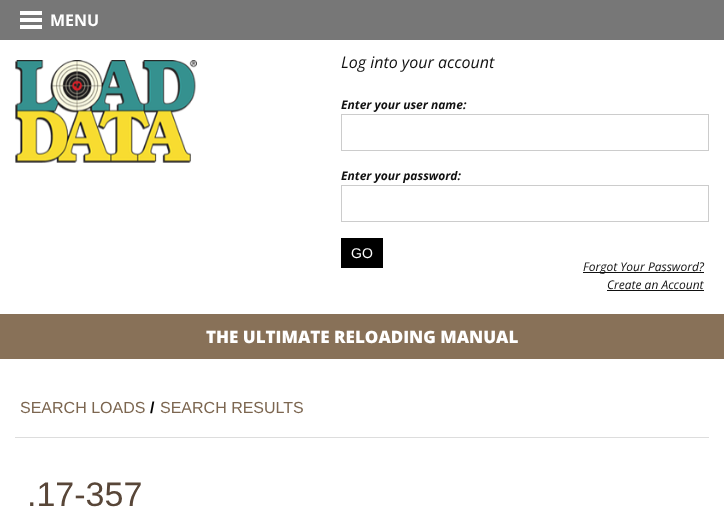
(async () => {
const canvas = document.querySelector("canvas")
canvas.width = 724
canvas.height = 522
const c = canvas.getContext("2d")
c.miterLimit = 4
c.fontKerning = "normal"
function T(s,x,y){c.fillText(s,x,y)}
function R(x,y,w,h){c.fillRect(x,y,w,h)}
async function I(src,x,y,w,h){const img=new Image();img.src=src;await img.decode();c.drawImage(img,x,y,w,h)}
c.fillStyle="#fff"
R(0,0,724,522)
c.fillStyle="#777"
R(0,0,724,40)
await I("1.png",20,11,22,18)
c.font="bold 16px Open Sans"
c.fillStyle="#fff"
T("MENU",50,26)
await I("2.png",15,60,182,103)
c.font="italic 16px Open Sans"
c.fillStyle="#111"
T("Log into your account",341,68)
c.font="italic bold 12px Open Sans"
T("Enter your user name:",341,109)
c.strokeStyle="#ccc"
c.strokeRect(341.5,114.5,367,36)
T("Enter your password:",341,180)
c.strokeRect(341.5,185.5,367,36)
c.fillStyle="#000"
R(341,238,42,30)
c.font="14px Liberation Sans"
c.fillStyle="#fff"
T("GO",351,258)
c.fillStyle="#111"
R(583,272,121,1)
c.font="italic 12px Open Sans"
T("Forgot Your Password?",583,271)
T("Create an Account",607,289)
R(607,290,97,1)
c.fillStyle="#887158"
R(0,314,724,45)
c.font="800 17px Open Sans"
c.fillStyle="#fff"
T("THE ULTIMATE RELOADING MANUAL",206,343)
c.font="16px Liberation Sans"
c.fillStyle="#7c6650"
T("SEARCH LOADS",20,413)
c.font="bold 16px Liberation Sans"
c.fillStyle="#000"
T("/",150,413)
c.font="16px Liberation Sans"
c.fillStyle="#7c6650"
T("SEARCH RESULTS",160,413)
c.fillStyle="#ddd"
R(15,437,694,1)
c.font="34px Liberation Sans"
c.fillStyle="#584638"
T(".17-357",27,506)
})()
